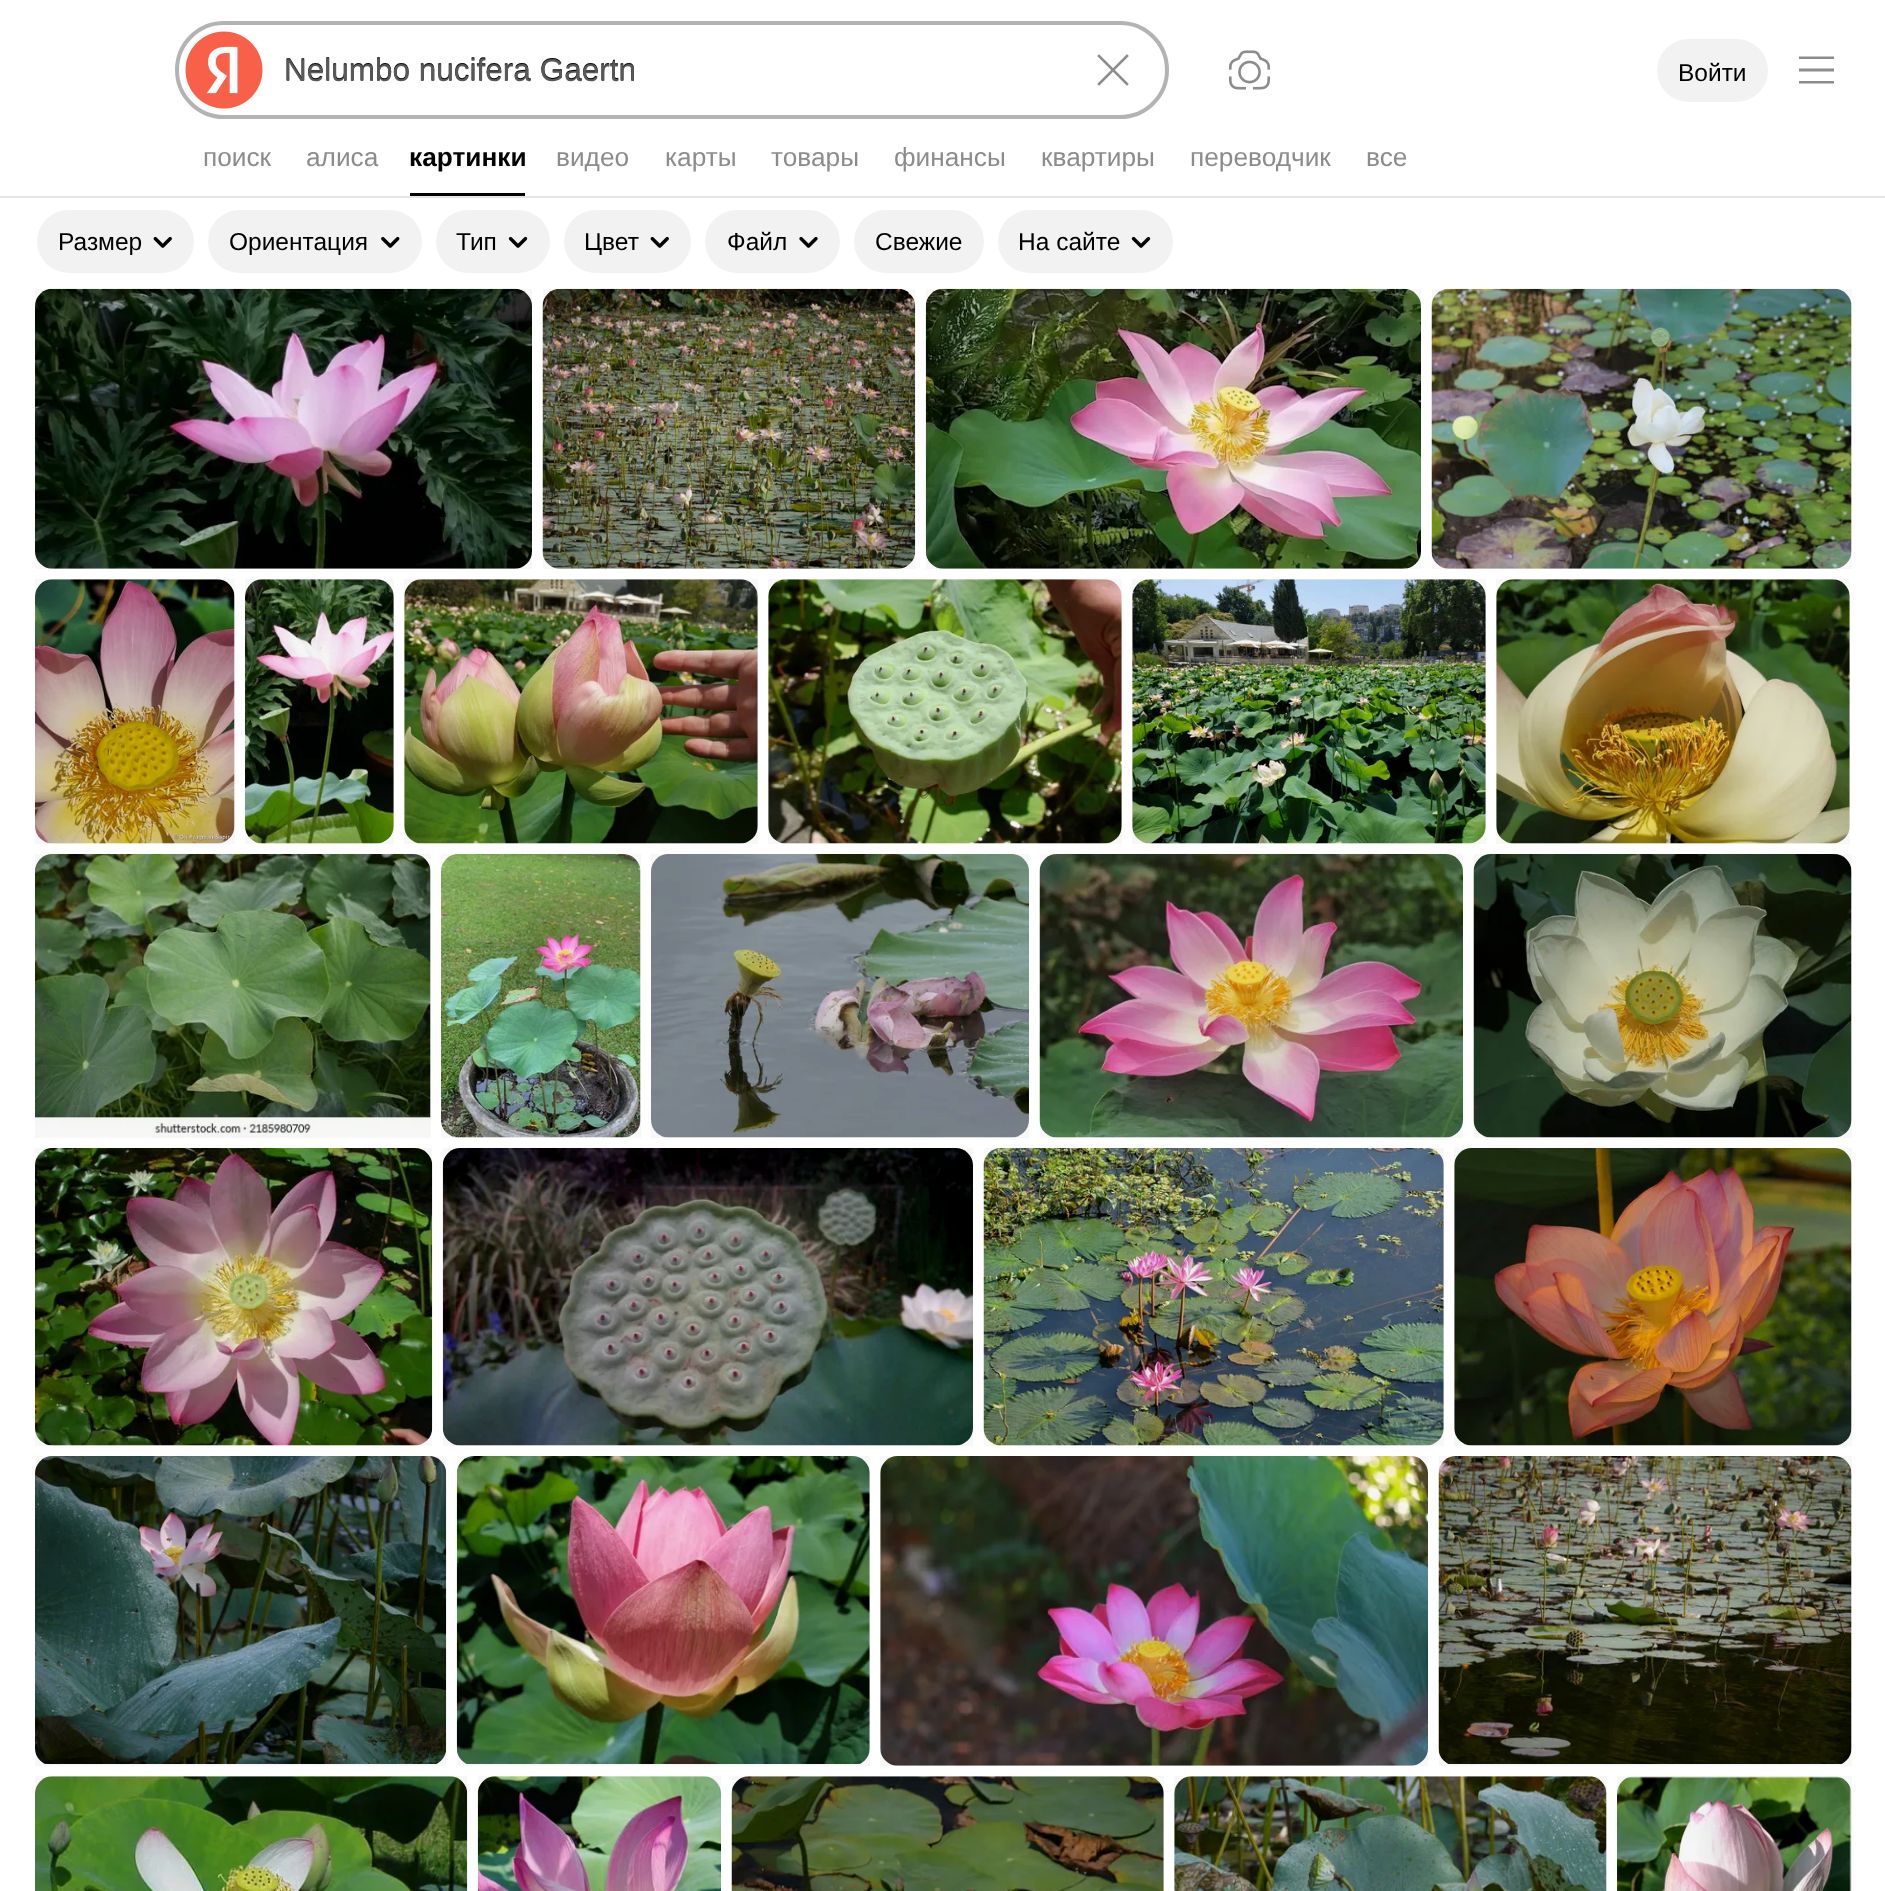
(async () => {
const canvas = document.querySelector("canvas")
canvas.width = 1885
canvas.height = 1891
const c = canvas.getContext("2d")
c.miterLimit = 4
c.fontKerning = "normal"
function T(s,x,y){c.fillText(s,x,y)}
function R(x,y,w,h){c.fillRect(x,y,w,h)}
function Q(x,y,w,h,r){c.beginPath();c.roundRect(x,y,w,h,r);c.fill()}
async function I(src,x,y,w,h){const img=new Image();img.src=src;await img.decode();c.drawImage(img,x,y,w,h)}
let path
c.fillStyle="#fff"
R(0,0,1885,1891)
c.fillStyle="#e6e6e6"
path = new Path2D("M0 196v2h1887v-196h-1v194z")
c.fill(path)
c.beginPath()
c.roundRect(177,23,990,94,47)
c.strokeStyle="#b3b3b3"
c.lineWidth=4
c.stroke()
await I("1.png",185,31,78,78)
c.font="31.5px Liberation Sans"
c.fillStyle="#000"
T("Nelumbo nucifera Gaertn",284,80)
c.fillStyle="#595959"
T("Nelumbo nucifera Gaertn",284,81)
await I("2.png",1097,54,32,32)
await I("3.png",1228,50,42,40)
c.fillStyle="#f2f2f2"
Q(1657,39,111,63,31.5)
c.font="24.5px Liberation Sans"
c.fillStyle="#000"
T("Войти",1678,81)
c.fillStyle="#8c8c8c"
path = new Path2D("M1799 56.5h35v2.5h-35zm0 12h35v3h-35zm0 12.5h35v2.5h-35z")
c.fill(path,"evenodd")
c.font="26.25px Liberation Sans"
T("поиск",203,166)
T("алиса",306,166)
c.font="bold 26.25px Liberation Sans"
c.fillStyle="#000"
T("картинки",409,166)
R(410,193,115,3)
c.font="26.25px Liberation Sans"
c.fillStyle="#8c8c8c"
T("видео",556,166)
T("карты",665,166)
T("товары",771,166)
T("финансы",894,166)
T("квартиры",1041,166)
T("переводчик",1190,166)
T("все",1366,166)
c.fillStyle="#f2f2f2"
Q(37,210,157,63,31.5)
c.font="24.5px Liberation Sans"
c.fillStyle="#000"
T("Размер",58,250)
await I("4.png",153,236,19,12)
c.fillStyle="#f2f2f2"
Q(208,210,214,63,31.5)
c.fillStyle="#000"
T("Ориентация",229,250)
await I("5.png",381,236,19,12)
c.fillStyle="#f2f2f2"
Q(436,210,114,63,31.5)
c.fillStyle="#000"
T("Тип",456,250)
await I("6.png",508,236,20,12)
c.fillStyle="#f2f2f2"
Q(564,210,127,63,31.5)
c.fillStyle="#000"
T("Цвет",584,250)
await I("4.png",650,236,19,12)
c.fillStyle="#f2f2f2"
Q(705,210,135,63,31.5)
c.fillStyle="#000"
T("Файл",727,250)
await I("7.png",799,236,19,12)
c.fillStyle="#f2f2f2"
Q(854,210,130,63,31.5)
c.fillStyle="#000"
T("Свежие",875,250)
c.fillStyle="#f2f2f2"
Q(998,210,175,63,31.5)
c.fillStyle="#000"
T("На сайте",1018,250)
await I("6.png",1131,236,20,12)
await I("8.png",35,288,497,281)
c.fillStyle="#00000008"
R(35,289,497,280)
await I("9.png",542,288,374,281)
R(543,289,372,280)
await I("10.png",925,288,496,281)
R(926,289,495,280)
await I("11.png",1431,288,421,281)
R(1432,289,420,280)
await I("12.png",35,579,200,265)
R(35,579,200,265)
await I("13.png",245,579,149,265)
R(245,579,149,265)
await I("14.png",404,579,354,265)
R(404,579,354,265)
await I("15.png",768,579,354,265)
R(768,579,354,265)
await I("16.png",1132,579,354,265)
R(1132,579,354,265)
await I("17.png",1496,579,354,265)
R(1496,579,354,265)
await I("18.png",35,854,396,283)
R(35,854,396,284)
await I("19.png",441,854,200,284)
R(441,854,200,284)
await I("20.png",651,854,378,284)
R(651,854,378,284)
await I("21.png",1039,854,424,284)
R(1040,854,423,284)
await I("22.png",1473,854,379,284)
R(1474,854,378,284)
await I("23.png",35,1148,398,298)
R(35,1148,397,298)
await I("24.png",442,1148,531,298)
R(443,1148,530,298)
await I("25.png",983,1148,461,298)
R(984,1148,460,298)
await I("26.png",1454,1148,398,298)
R(1454,1148,398,298)
await I("27.png",35,1456,412,308)
R(35,1456,411,310)
await I("28.png",456,1456,414,308)
R(457,1456,413,310)
await I("29.png",880,1456,548,310)
R(880,1456,548,310)
await I("30.png",1438,1456,414,308)
R(1439,1456,413,310)
await I("31.png",35,1776,433,115)
R(35,1776,432,115)
await I("32.png",477,1776,244,115)
R(478,1776,243,115)
await I("33.png",731,1776,433,115)
R(732,1776,432,115)
await I("34.png",1174,1776,433,115)
R(1174,1776,433,115)
await I("35.png",1617,1776,235,115)
R(1617,1776,235,115)
})()
